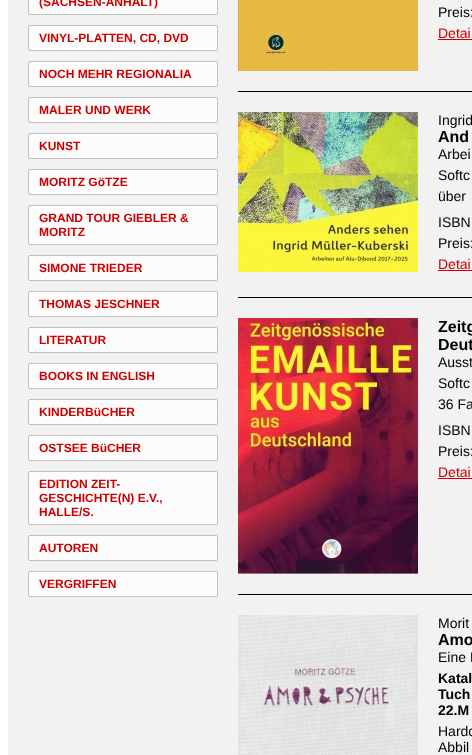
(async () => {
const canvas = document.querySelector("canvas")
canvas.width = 472
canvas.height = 755
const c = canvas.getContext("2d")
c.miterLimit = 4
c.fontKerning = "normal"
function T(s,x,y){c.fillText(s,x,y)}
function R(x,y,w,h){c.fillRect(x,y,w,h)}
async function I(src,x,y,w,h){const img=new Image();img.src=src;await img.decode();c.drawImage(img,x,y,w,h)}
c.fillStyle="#fff"
R(0,0,472,755)
c.fillStyle="#f2f2f2"
R(8,0,464,755)
c.fillStyle="#fcfcfc"
c.beginPath()
c.roundRect(28.5,-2.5,189,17,1.5)
c.fill()
c.strokeStyle="#c0c0c0"
c.stroke()
c.font="bold 12px Liberation Sans"
c.fillStyle="#c00"
T("(SACHSEN-ANHALT)",39,6)
c.fillStyle="#fcfcfc"
c.beginPath()
c.roundRect(28.5,25.5,189,25,1.5)
c.fill()
c.stroke()
c.fillStyle="#c00"
T("VINYL-PLATTEN, CD, DVD",39,42)
c.fillStyle="#fcfcfc"
c.beginPath()
c.roundRect(28.5,61.5,189,25,1.5)
c.fill()
c.stroke()
c.fillStyle="#c00"
T("NOCH MEHR REGIONALIA",39,78)
c.fillStyle="#fcfcfc"
c.beginPath()
c.roundRect(28.5,97.5,189,25,1.5)
c.fill()
c.stroke()
c.fillStyle="#c00"
T("MALER UND WERK",39,114)
c.fillStyle="#fcfcfc"
c.beginPath()
c.roundRect(28.5,133.5,189,25,1.5)
c.fill()
c.stroke()
c.fillStyle="#c00"
T("KUNST",39,150)
c.fillStyle="#fcfcfc"
c.beginPath()
c.roundRect(28.5,169.5,189,25,1.5)
c.fill()
c.stroke()
c.fillStyle="#c00"
T("MORITZ GöTZE",39,186)
c.fillStyle="#fcfcfc"
c.beginPath()
c.roundRect(28.5,205.5,189,39,1.5)
c.fill()
c.stroke()
c.fillStyle="#c00"
T("GRAND TOUR GIEBLER &",39,222)
T("MORITZ",39,236)
c.fillStyle="#fcfcfc"
c.beginPath()
c.roundRect(28.5,255.5,189,25,1.5)
c.fill()
c.stroke()
c.fillStyle="#c00"
T("SIMONE TRIEDER",39,272)
c.fillStyle="#fcfcfc"
c.beginPath()
c.roundRect(28.5,291.5,189,25,1.5)
c.fill()
c.stroke()
c.fillStyle="#c00"
T("THOMAS JESCHNER",39,308)
c.fillStyle="#fcfcfc"
c.beginPath()
c.roundRect(28.5,327.5,189,25,1.5)
c.fill()
c.stroke()
c.fillStyle="#c00"
T("LITERATUR",39,344)
c.fillStyle="#fcfcfc"
c.beginPath()
c.roundRect(28.5,363.5,189,25,1.5)
c.fill()
c.stroke()
c.fillStyle="#c00"
T("BOOKS IN ENGLISH",39,380)
c.fillStyle="#fcfcfc"
c.beginPath()
c.roundRect(28.5,399.5,189,25,1.5)
c.fill()
c.stroke()
c.fillStyle="#c00"
T("KINDERBüCHER",39,416)
c.fillStyle="#fcfcfc"
c.beginPath()
c.roundRect(28.5,435.5,189,25,1.5)
c.fill()
c.stroke()
c.fillStyle="#c00"
T("OSTSEE BüCHER",39,452)
c.fillStyle="#fcfcfc"
c.beginPath()
c.roundRect(28.5,471.5,189,53,1.5)
c.fill()
c.stroke()
c.fillStyle="#c00"
T("EDITION ZEIT-",39,488)
T("GESCHICHTE(N) E.V.,",39,502)
T("HALLE/S.",39,516)
c.fillStyle="#fcfcfc"
c.beginPath()
c.roundRect(28.5,535.5,189,25,1.5)
c.fill()
c.stroke()
c.fillStyle="#c00"
T("AUTOREN",39,552)
c.fillStyle="#fcfcfc"
c.beginPath()
c.roundRect(28.5,571.5,189,25,1.5)
c.fill()
c.stroke()
c.fillStyle="#c00"
T("VERGRIFFEN",39,588)
c.fillStyle="#000"
R(238,91,234,1)
await I("1.png",238,0,180,71)
c.font="14px Liberation Sans"
T("Preis:",438,17)
c.fillStyle="#c00"
T("Detai",438,38)
R(438,39,34,1)
c.fillStyle="#000"
R(238,297,234,1)
await I("2.png",238,112,180,160)
T("Ingrid",438,125)
c.font="bold 16px Liberation Sans"
T("And",438,142)
c.font="14px Liberation Sans"
T("Arbei",438,159)
T("Softc",438,180)
T("über",438,201)
T("ISBN",438,227)
T("Preis:",438,248)
c.fillStyle="#c00"
T("Detai",438,269)
R(438,270,34,1)
c.fillStyle="#000"
R(238,594,234,1)
await I("3.png",238,318,180,256)
c.font="bold 16px Liberation Sans"
T("Zeitg",438,332)
T("Deut",438,350)
c.font="14px Liberation Sans"
T("Ausst",438,367)
T("Softc",438,388)
T("36 Fa",438,409)
T("ISBN",438,435)
T("Preis:",438,456)
c.fillStyle="#c00"
T("Detai",438,477)
R(438,478,34,1)
await I("4.png",238,615,180,140)
c.fillStyle="#000"
T("Morit",438,628)
c.font="bold 16px Liberation Sans"
T("Amo",438,645)
c.font="14px Liberation Sans"
T("Eine L",438,662)
c.font="bold 14px Liberation Sans"
T("Katal",438,683)
T("Tuch",438,699)
T("22.M",438,715)
c.font="14px Liberation Sans"
T("Hardc",438,736)
T("Abbil",438,752)
})()
